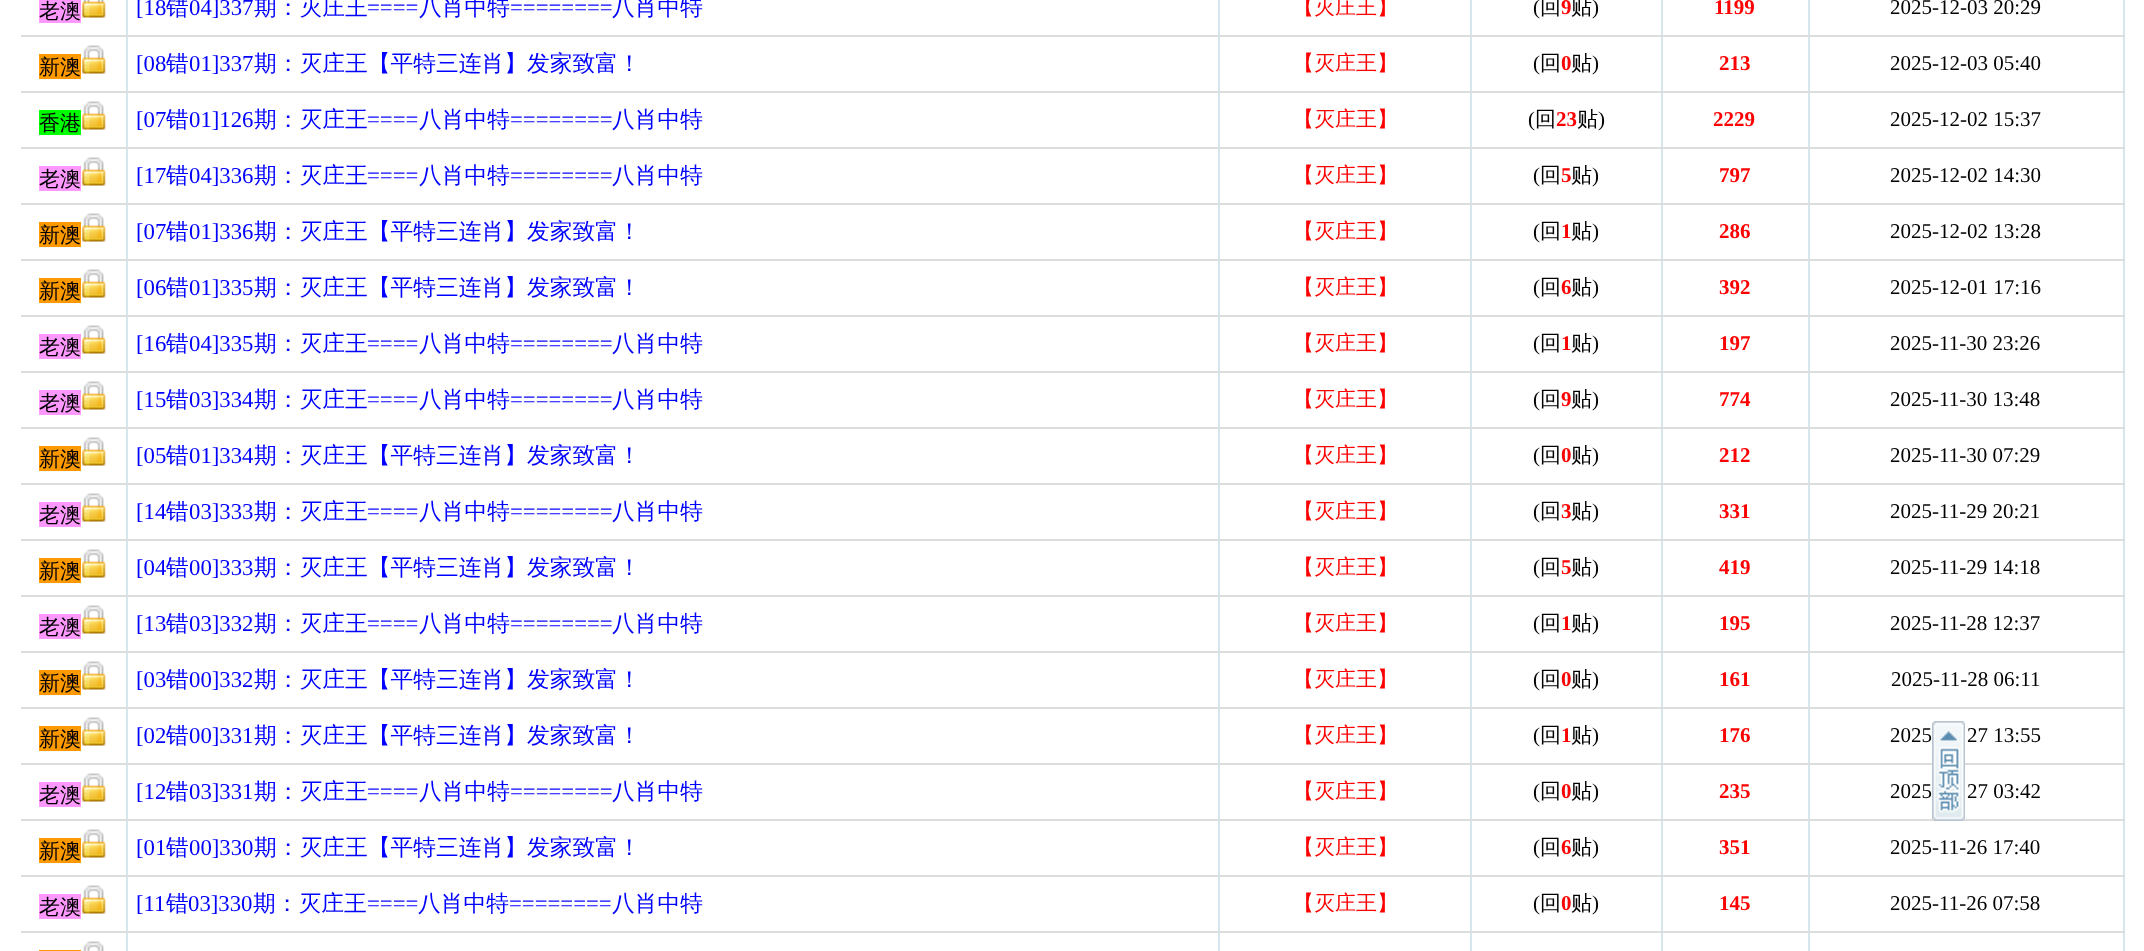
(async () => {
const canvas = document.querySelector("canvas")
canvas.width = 2144
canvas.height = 951
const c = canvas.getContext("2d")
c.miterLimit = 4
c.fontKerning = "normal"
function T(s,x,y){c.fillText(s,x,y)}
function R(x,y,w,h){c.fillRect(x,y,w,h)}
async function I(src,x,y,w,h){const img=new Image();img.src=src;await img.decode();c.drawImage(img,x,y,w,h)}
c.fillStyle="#fff"
R(0,0,2144,951)
c.fillStyle="#d5e6ed"
R(2123,0,2,951)
c.fillStyle="#ddd"
R(1808,35,317,2)
c.fillStyle="#d5e6ed"
R(1808,0,2,37)
c.fillStyle="#ddd"
R(1661,35,149,2)
c.fillStyle="#d5e6ed"
R(1661,0,2,37)
c.fillStyle="#ddd"
R(1470,35,193,2)
c.fillStyle="#d5e6ed"
R(1470,0,2,37)
c.fillStyle="#ddd"
R(1218,35,254,2)
c.fillStyle="#d5e6ed"
R(1218,0,2,37)
c.fillStyle="#ddd"
R(126,35,1094,2)
c.fillStyle="#d5e6ed"
R(126,0,2,37)
c.fillStyle="#ddd"
R(21,35,107,2)
c.fillStyle="#f9f"
R(39,0,42,23)
c.font="500 21px WenQuanYi Zen Hei"
c.fillStyle="#000"
T("老澳",39,18)
await I("1.png",81,0,25,18)
c.font="22.75px Liberation Serif"
c.fillStyle="#00f"
T("[18",136,15)
c.font="500 22.75px WenQuanYi Zen Hei"
T("错",166,15)
c.font="22.75px Liberation Serif"
T("04]337",189,15)
c.font="500 22.75px WenQuanYi Zen Hei"
T("期：灭庄王",254,15)
c.font="22.75px Liberation Serif"
T("====",367,15)
c.font="500 22.75px WenQuanYi Zen Hei"
T("八肖中特",419,15)
c.font="22.75px Liberation Serif"
T("========",510,15)
c.font="500 22.75px WenQuanYi Zen Hei"
T("八肖中特",612,15)
c.font="500 21px WenQuanYi Zen Hei"
c.fillStyle="#f00"
T("【灭庄王】",1293,14)
c.font="21px Liberation Serif"
c.fillStyle="#000"
T("(",1533,14)
c.font="500 21px WenQuanYi Zen Hei"
T("回",1540,14)
c.font="bold 21px Liberation Serif"
c.fillStyle="#f00"
T("9",1561,14)
c.font="500 21px WenQuanYi Zen Hei"
c.fillStyle="#000"
T("贴",1571,14)
c.font="21px Liberation Serif"
T(")",1592,14)
c.font="bold 21px Liberation Serif"
c.fillStyle="#f00"
T("1199",1714,14)
c.font="21px Liberation Serif"
c.fillStyle="#000"
T("2025-12-03 20:29",1890,14)
c.fillStyle="#ddd"
R(1808,91,317,2)
c.fillStyle="#d5e6ed"
R(1808,37,2,56)
c.fillStyle="#ddd"
R(1661,91,149,2)
c.fillStyle="#d5e6ed"
R(1661,37,2,56)
c.fillStyle="#ddd"
R(1470,91,193,2)
c.fillStyle="#d5e6ed"
R(1470,37,2,56)
c.fillStyle="#ddd"
R(1218,91,254,2)
c.fillStyle="#d5e6ed"
R(1218,37,2,56)
c.fillStyle="#ddd"
R(126,91,1094,2)
c.fillStyle="#d5e6ed"
R(126,37,2,56)
c.fillStyle="#ddd"
R(21,91,107,2)
c.fillStyle="#f90"
R(39,54,42,25)
c.font="500 21px WenQuanYi Zen Hei"
c.fillStyle="#000"
T("新澳",39,74)
await I("2.png",81,45,25,29)
c.font="22.75px Liberation Serif"
c.fillStyle="#00f"
T("[08",136,71)
c.font="500 22.75px WenQuanYi Zen Hei"
T("错",166,71)
c.font="22.75px Liberation Serif"
T("01]337",189,71)
c.font="500 22.75px WenQuanYi Zen Hei"
T("期：灭庄王【平特三连肖】发家致富！",254,71)
c.font="500 21px WenQuanYi Zen Hei"
c.fillStyle="#f00"
T("【灭庄王】",1293,70)
c.font="21px Liberation Serif"
c.fillStyle="#000"
T("(",1533,70)
c.font="500 21px WenQuanYi Zen Hei"
T("回",1540,70)
c.font="bold 21px Liberation Serif"
c.fillStyle="#f00"
T("0",1561,70)
c.font="500 21px WenQuanYi Zen Hei"
c.fillStyle="#000"
T("贴",1571,70)
c.font="21px Liberation Serif"
T(")",1592,70)
c.font="bold 21px Liberation Serif"
c.fillStyle="#f00"
T("213",1719,70)
c.font="21px Liberation Serif"
c.fillStyle="#000"
T("2025-12-03 05:40",1890,70)
c.fillStyle="#ddd"
R(1808,147,317,2)
c.fillStyle="#d5e6ed"
R(1808,93,2,56)
c.fillStyle="#ddd"
R(1661,147,149,2)
c.fillStyle="#d5e6ed"
R(1661,93,2,56)
c.fillStyle="#ddd"
R(1470,147,193,2)
c.fillStyle="#d5e6ed"
R(1470,93,2,56)
c.fillStyle="#ddd"
R(1218,147,254,2)
c.fillStyle="#d5e6ed"
R(1218,93,2,56)
c.fillStyle="#ddd"
R(126,147,1094,2)
c.fillStyle="#d5e6ed"
R(126,93,2,56)
c.fillStyle="#ddd"
R(21,147,107,2)
c.fillStyle="#0f0"
R(39,110,42,25)
c.font="500 21px WenQuanYi Zen Hei"
c.fillStyle="#000"
T("香港",39,130)
await I("2.png",81,101,25,29)
c.font="22.75px Liberation Serif"
c.fillStyle="#00f"
T("[07",136,127)
c.font="500 22.75px WenQuanYi Zen Hei"
T("错",166,127)
c.font="22.75px Liberation Serif"
T("01]126",189,127)
c.font="500 22.75px WenQuanYi Zen Hei"
T("期：灭庄王",254,127)
c.font="22.75px Liberation Serif"
T("====",367,127)
c.font="500 22.75px WenQuanYi Zen Hei"
T("八肖中特",419,127)
c.font="22.75px Liberation Serif"
T("========",510,127)
c.font="500 22.75px WenQuanYi Zen Hei"
T("八肖中特",612,127)
c.font="500 21px WenQuanYi Zen Hei"
c.fillStyle="#f00"
T("【灭庄王】",1293,126)
c.font="21px Liberation Serif"
c.fillStyle="#000"
T("(",1528,126)
c.font="500 21px WenQuanYi Zen Hei"
T("回",1535,126)
c.font="bold 21px Liberation Serif"
c.fillStyle="#f00"
T("23",1556,126)
c.font="500 21px WenQuanYi Zen Hei"
c.fillStyle="#000"
T("贴",1577,126)
c.font="21px Liberation Serif"
T(")",1598,126)
c.font="bold 21px Liberation Serif"
c.fillStyle="#f00"
T("2229",1713,126)
c.font="21px Liberation Serif"
c.fillStyle="#000"
T("2025-12-02 15:37",1890,126)
c.fillStyle="#ddd"
R(1808,203,317,2)
c.fillStyle="#d5e6ed"
R(1808,149,2,56)
c.fillStyle="#ddd"
R(1661,203,149,2)
c.fillStyle="#d5e6ed"
R(1661,149,2,56)
c.fillStyle="#ddd"
R(1470,203,193,2)
c.fillStyle="#d5e6ed"
R(1470,149,2,56)
c.fillStyle="#ddd"
R(1218,203,254,2)
c.fillStyle="#d5e6ed"
R(1218,149,2,56)
c.fillStyle="#ddd"
R(126,203,1094,2)
c.fillStyle="#d5e6ed"
R(126,149,2,56)
c.fillStyle="#ddd"
R(21,203,107,2)
c.fillStyle="#f9f"
R(39,166,42,25)
c.font="500 21px WenQuanYi Zen Hei"
c.fillStyle="#000"
T("老澳",39,186)
await I("2.png",81,157,25,29)
c.font="22.75px Liberation Serif"
c.fillStyle="#00f"
T("[17",136,183)
c.font="500 22.75px WenQuanYi Zen Hei"
T("错",166,183)
c.font="22.75px Liberation Serif"
T("04]336",189,183)
c.font="500 22.75px WenQuanYi Zen Hei"
T("期：灭庄王",254,183)
c.font="22.75px Liberation Serif"
T("====",367,183)
c.font="500 22.75px WenQuanYi Zen Hei"
T("八肖中特",419,183)
c.font="22.75px Liberation Serif"
T("========",510,183)
c.font="500 22.75px WenQuanYi Zen Hei"
T("八肖中特",612,183)
c.font="500 21px WenQuanYi Zen Hei"
c.fillStyle="#f00"
T("【灭庄王】",1293,182)
c.font="21px Liberation Serif"
c.fillStyle="#000"
T("(",1533,182)
c.font="500 21px WenQuanYi Zen Hei"
T("回",1540,182)
c.font="bold 21px Liberation Serif"
c.fillStyle="#f00"
T("5",1561,182)
c.font="500 21px WenQuanYi Zen Hei"
c.fillStyle="#000"
T("贴",1571,182)
c.font="21px Liberation Serif"
T(")",1592,182)
c.font="bold 21px Liberation Serif"
c.fillStyle="#f00"
T("797",1719,182)
c.font="21px Liberation Serif"
c.fillStyle="#000"
T("2025-12-02 14:30",1890,182)
c.fillStyle="#ddd"
R(1808,259,317,2)
c.fillStyle="#d5e6ed"
R(1808,205,2,56)
c.fillStyle="#ddd"
R(1661,259,149,2)
c.fillStyle="#d5e6ed"
R(1661,205,2,56)
c.fillStyle="#ddd"
R(1470,259,193,2)
c.fillStyle="#d5e6ed"
R(1470,205,2,56)
c.fillStyle="#ddd"
R(1218,259,254,2)
c.fillStyle="#d5e6ed"
R(1218,205,2,56)
c.fillStyle="#ddd"
R(126,259,1094,2)
c.fillStyle="#d5e6ed"
R(126,205,2,56)
c.fillStyle="#ddd"
R(21,259,107,2)
c.fillStyle="#f90"
R(39,222,42,25)
c.font="500 21px WenQuanYi Zen Hei"
c.fillStyle="#000"
T("新澳",39,242)
await I("2.png",81,213,25,29)
c.font="22.75px Liberation Serif"
c.fillStyle="#00f"
T("[07",136,239)
c.font="500 22.75px WenQuanYi Zen Hei"
T("错",166,239)
c.font="22.75px Liberation Serif"
T("01]336",189,239)
c.font="500 22.75px WenQuanYi Zen Hei"
T("期：灭庄王【平特三连肖】发家致富！",254,239)
c.font="500 21px WenQuanYi Zen Hei"
c.fillStyle="#f00"
T("【灭庄王】",1293,238)
c.font="21px Liberation Serif"
c.fillStyle="#000"
T("(",1533,238)
c.font="500 21px WenQuanYi Zen Hei"
T("回",1540,238)
c.font="bold 21px Liberation Serif"
c.fillStyle="#f00"
T("1",1561,238)
c.font="500 21px WenQuanYi Zen Hei"
c.fillStyle="#000"
T("贴",1571,238)
c.font="21px Liberation Serif"
T(")",1592,238)
c.font="bold 21px Liberation Serif"
c.fillStyle="#f00"
T("286",1719,238)
c.font="21px Liberation Serif"
c.fillStyle="#000"
T("2025-12-02 13:28",1890,238)
c.fillStyle="#ddd"
R(1808,315,317,2)
c.fillStyle="#d5e6ed"
R(1808,261,2,56)
c.fillStyle="#ddd"
R(1661,315,149,2)
c.fillStyle="#d5e6ed"
R(1661,261,2,56)
c.fillStyle="#ddd"
R(1470,315,193,2)
c.fillStyle="#d5e6ed"
R(1470,261,2,56)
c.fillStyle="#ddd"
R(1218,315,254,2)
c.fillStyle="#d5e6ed"
R(1218,261,2,56)
c.fillStyle="#ddd"
R(126,315,1094,2)
c.fillStyle="#d5e6ed"
R(126,261,2,56)
c.fillStyle="#ddd"
R(21,315,107,2)
c.fillStyle="#f90"
R(39,278,42,25)
c.font="500 21px WenQuanYi Zen Hei"
c.fillStyle="#000"
T("新澳",39,298)
await I("2.png",81,269,25,29)
c.font="22.75px Liberation Serif"
c.fillStyle="#00f"
T("[06",136,295)
c.font="500 22.75px WenQuanYi Zen Hei"
T("错",166,295)
c.font="22.75px Liberation Serif"
T("01]335",189,295)
c.font="500 22.75px WenQuanYi Zen Hei"
T("期：灭庄王【平特三连肖】发家致富！",254,295)
c.font="500 21px WenQuanYi Zen Hei"
c.fillStyle="#f00"
T("【灭庄王】",1293,294)
c.font="21px Liberation Serif"
c.fillStyle="#000"
T("(",1533,294)
c.font="500 21px WenQuanYi Zen Hei"
T("回",1540,294)
c.font="bold 21px Liberation Serif"
c.fillStyle="#f00"
T("6",1561,294)
c.font="500 21px WenQuanYi Zen Hei"
c.fillStyle="#000"
T("贴",1571,294)
c.font="21px Liberation Serif"
T(")",1592,294)
c.font="bold 21px Liberation Serif"
c.fillStyle="#f00"
T("392",1719,294)
c.font="21px Liberation Serif"
c.fillStyle="#000"
T("2025-12-01 17:16",1890,294)
c.fillStyle="#ddd"
R(1808,371,317,2)
c.fillStyle="#d5e6ed"
R(1808,317,2,56)
c.fillStyle="#ddd"
R(1661,371,149,2)
c.fillStyle="#d5e6ed"
R(1661,317,2,56)
c.fillStyle="#ddd"
R(1470,371,193,2)
c.fillStyle="#d5e6ed"
R(1470,317,2,56)
c.fillStyle="#ddd"
R(1218,371,254,2)
c.fillStyle="#d5e6ed"
R(1218,317,2,56)
c.fillStyle="#ddd"
R(126,371,1094,2)
c.fillStyle="#d5e6ed"
R(126,317,2,56)
c.fillStyle="#ddd"
R(21,371,107,2)
c.fillStyle="#f9f"
R(39,334,42,25)
c.font="500 21px WenQuanYi Zen Hei"
c.fillStyle="#000"
T("老澳",39,354)
await I("2.png",81,325,25,29)
c.font="22.75px Liberation Serif"
c.fillStyle="#00f"
T("[16",136,351)
c.font="500 22.75px WenQuanYi Zen Hei"
T("错",166,351)
c.font="22.75px Liberation Serif"
T("04]335",189,351)
c.font="500 22.75px WenQuanYi Zen Hei"
T("期：灭庄王",254,351)
c.font="22.75px Liberation Serif"
T("====",367,351)
c.font="500 22.75px WenQuanYi Zen Hei"
T("八肖中特",419,351)
c.font="22.75px Liberation Serif"
T("========",510,351)
c.font="500 22.75px WenQuanYi Zen Hei"
T("八肖中特",612,351)
c.font="500 21px WenQuanYi Zen Hei"
c.fillStyle="#f00"
T("【灭庄王】",1293,350)
c.font="21px Liberation Serif"
c.fillStyle="#000"
T("(",1533,350)
c.font="500 21px WenQuanYi Zen Hei"
T("回",1540,350)
c.font="bold 21px Liberation Serif"
c.fillStyle="#f00"
T("1",1561,350)
c.font="500 21px WenQuanYi Zen Hei"
c.fillStyle="#000"
T("贴",1571,350)
c.font="21px Liberation Serif"
T(")",1592,350)
c.font="bold 21px Liberation Serif"
c.fillStyle="#f00"
T("197",1719,350)
c.font="21px Liberation Serif"
c.fillStyle="#000"
T("2025-11-30 23:26",1890,350)
c.fillStyle="#ddd"
R(1808,427,317,2)
c.fillStyle="#d5e6ed"
R(1808,373,2,56)
c.fillStyle="#ddd"
R(1661,427,149,2)
c.fillStyle="#d5e6ed"
R(1661,373,2,56)
c.fillStyle="#ddd"
R(1470,427,193,2)
c.fillStyle="#d5e6ed"
R(1470,373,2,56)
c.fillStyle="#ddd"
R(1218,427,254,2)
c.fillStyle="#d5e6ed"
R(1218,373,2,56)
c.fillStyle="#ddd"
R(126,427,1094,2)
c.fillStyle="#d5e6ed"
R(126,373,2,56)
c.fillStyle="#ddd"
R(21,427,107,2)
c.fillStyle="#f9f"
R(39,390,42,25)
c.font="500 21px WenQuanYi Zen Hei"
c.fillStyle="#000"
T("老澳",39,410)
await I("2.png",81,381,25,29)
c.font="22.75px Liberation Serif"
c.fillStyle="#00f"
T("[15",136,407)
c.font="500 22.75px WenQuanYi Zen Hei"
T("错",166,407)
c.font="22.75px Liberation Serif"
T("03]334",189,407)
c.font="500 22.75px WenQuanYi Zen Hei"
T("期：灭庄王",254,407)
c.font="22.75px Liberation Serif"
T("====",367,407)
c.font="500 22.75px WenQuanYi Zen Hei"
T("八肖中特",419,407)
c.font="22.75px Liberation Serif"
T("========",510,407)
c.font="500 22.75px WenQuanYi Zen Hei"
T("八肖中特",612,407)
c.font="500 21px WenQuanYi Zen Hei"
c.fillStyle="#f00"
T("【灭庄王】",1293,406)
c.font="21px Liberation Serif"
c.fillStyle="#000"
T("(",1533,406)
c.font="500 21px WenQuanYi Zen Hei"
T("回",1540,406)
c.font="bold 21px Liberation Serif"
c.fillStyle="#f00"
T("9",1561,406)
c.font="500 21px WenQuanYi Zen Hei"
c.fillStyle="#000"
T("贴",1571,406)
c.font="21px Liberation Serif"
T(")",1592,406)
c.font="bold 21px Liberation Serif"
c.fillStyle="#f00"
T("774",1719,406)
c.font="21px Liberation Serif"
c.fillStyle="#000"
T("2025-11-30 13:48",1890,406)
c.fillStyle="#ddd"
R(1808,483,317,2)
c.fillStyle="#d5e6ed"
R(1808,429,2,56)
c.fillStyle="#ddd"
R(1661,483,149,2)
c.fillStyle="#d5e6ed"
R(1661,429,2,56)
c.fillStyle="#ddd"
R(1470,483,193,2)
c.fillStyle="#d5e6ed"
R(1470,429,2,56)
c.fillStyle="#ddd"
R(1218,483,254,2)
c.fillStyle="#d5e6ed"
R(1218,429,2,56)
c.fillStyle="#ddd"
R(126,483,1094,2)
c.fillStyle="#d5e6ed"
R(126,429,2,56)
c.fillStyle="#ddd"
R(21,483,107,2)
c.fillStyle="#f90"
R(39,446,42,25)
c.font="500 21px WenQuanYi Zen Hei"
c.fillStyle="#000"
T("新澳",39,466)
await I("2.png",81,437,25,29)
c.font="22.75px Liberation Serif"
c.fillStyle="#00f"
T("[05",136,463)
c.font="500 22.75px WenQuanYi Zen Hei"
T("错",166,463)
c.font="22.75px Liberation Serif"
T("01]334",189,463)
c.font="500 22.75px WenQuanYi Zen Hei"
T("期：灭庄王【平特三连肖】发家致富！",254,463)
c.font="500 21px WenQuanYi Zen Hei"
c.fillStyle="#f00"
T("【灭庄王】",1293,462)
c.font="21px Liberation Serif"
c.fillStyle="#000"
T("(",1533,462)
c.font="500 21px WenQuanYi Zen Hei"
T("回",1540,462)
c.font="bold 21px Liberation Serif"
c.fillStyle="#f00"
T("0",1561,462)
c.font="500 21px WenQuanYi Zen Hei"
c.fillStyle="#000"
T("贴",1571,462)
c.font="21px Liberation Serif"
T(")",1592,462)
c.font="bold 21px Liberation Serif"
c.fillStyle="#f00"
T("212",1719,462)
c.font="21px Liberation Serif"
c.fillStyle="#000"
T("2025-11-30 07:29",1890,462)
c.fillStyle="#ddd"
R(1808,539,317,2)
c.fillStyle="#d5e6ed"
R(1808,485,2,56)
c.fillStyle="#ddd"
R(1661,539,149,2)
c.fillStyle="#d5e6ed"
R(1661,485,2,56)
c.fillStyle="#ddd"
R(1470,539,193,2)
c.fillStyle="#d5e6ed"
R(1470,485,2,56)
c.fillStyle="#ddd"
R(1218,539,254,2)
c.fillStyle="#d5e6ed"
R(1218,485,2,56)
c.fillStyle="#ddd"
R(126,539,1094,2)
c.fillStyle="#d5e6ed"
R(126,485,2,56)
c.fillStyle="#ddd"
R(21,539,107,2)
c.fillStyle="#f9f"
R(39,502,42,25)
c.font="500 21px WenQuanYi Zen Hei"
c.fillStyle="#000"
T("老澳",39,522)
await I("2.png",81,493,25,29)
c.font="22.75px Liberation Serif"
c.fillStyle="#00f"
T("[14",136,519)
c.font="500 22.75px WenQuanYi Zen Hei"
T("错",166,519)
c.font="22.75px Liberation Serif"
T("03]333",189,519)
c.font="500 22.75px WenQuanYi Zen Hei"
T("期：灭庄王",254,519)
c.font="22.75px Liberation Serif"
T("====",367,519)
c.font="500 22.75px WenQuanYi Zen Hei"
T("八肖中特",419,519)
c.font="22.75px Liberation Serif"
T("========",510,519)
c.font="500 22.75px WenQuanYi Zen Hei"
T("八肖中特",612,519)
c.font="500 21px WenQuanYi Zen Hei"
c.fillStyle="#f00"
T("【灭庄王】",1293,518)
c.font="21px Liberation Serif"
c.fillStyle="#000"
T("(",1533,518)
c.font="500 21px WenQuanYi Zen Hei"
T("回",1540,518)
c.font="bold 21px Liberation Serif"
c.fillStyle="#f00"
T("3",1561,518)
c.font="500 21px WenQuanYi Zen Hei"
c.fillStyle="#000"
T("贴",1571,518)
c.font="21px Liberation Serif"
T(")",1592,518)
c.font="bold 21px Liberation Serif"
c.fillStyle="#f00"
T("331",1719,518)
c.font="21px Liberation Serif"
c.fillStyle="#000"
T("2025-11-29 20:21",1890,518)
c.fillStyle="#ddd"
R(1808,595,317,2)
c.fillStyle="#d5e6ed"
R(1808,541,2,56)
c.fillStyle="#ddd"
R(1661,595,149,2)
c.fillStyle="#d5e6ed"
R(1661,541,2,56)
c.fillStyle="#ddd"
R(1470,595,193,2)
c.fillStyle="#d5e6ed"
R(1470,541,2,56)
c.fillStyle="#ddd"
R(1218,595,254,2)
c.fillStyle="#d5e6ed"
R(1218,541,2,56)
c.fillStyle="#ddd"
R(126,595,1094,2)
c.fillStyle="#d5e6ed"
R(126,541,2,56)
c.fillStyle="#ddd"
R(21,595,107,2)
c.fillStyle="#f90"
R(39,558,42,25)
c.font="500 21px WenQuanYi Zen Hei"
c.fillStyle="#000"
T("新澳",39,578)
await I("2.png",81,549,25,29)
c.font="22.75px Liberation Serif"
c.fillStyle="#00f"
T("[04",136,575)
c.font="500 22.75px WenQuanYi Zen Hei"
T("错",166,575)
c.font="22.75px Liberation Serif"
T("00]333",189,575)
c.font="500 22.75px WenQuanYi Zen Hei"
T("期：灭庄王【平特三连肖】发家致富！",254,575)
c.font="500 21px WenQuanYi Zen Hei"
c.fillStyle="#f00"
T("【灭庄王】",1293,574)
c.font="21px Liberation Serif"
c.fillStyle="#000"
T("(",1533,574)
c.font="500 21px WenQuanYi Zen Hei"
T("回",1540,574)
c.font="bold 21px Liberation Serif"
c.fillStyle="#f00"
T("5",1561,574)
c.font="500 21px WenQuanYi Zen Hei"
c.fillStyle="#000"
T("贴",1571,574)
c.font="21px Liberation Serif"
T(")",1592,574)
c.font="bold 21px Liberation Serif"
c.fillStyle="#f00"
T("419",1719,574)
c.font="21px Liberation Serif"
c.fillStyle="#000"
T("2025-11-29 14:18",1890,574)
c.fillStyle="#ddd"
R(1808,651,317,2)
c.fillStyle="#d5e6ed"
R(1808,597,2,56)
c.fillStyle="#ddd"
R(1661,651,149,2)
c.fillStyle="#d5e6ed"
R(1661,597,2,56)
c.fillStyle="#ddd"
R(1470,651,193,2)
c.fillStyle="#d5e6ed"
R(1470,597,2,56)
c.fillStyle="#ddd"
R(1218,651,254,2)
c.fillStyle="#d5e6ed"
R(1218,597,2,56)
c.fillStyle="#ddd"
R(126,651,1094,2)
c.fillStyle="#d5e6ed"
R(126,597,2,56)
c.fillStyle="#ddd"
R(21,651,107,2)
c.fillStyle="#f9f"
R(39,614,42,25)
c.font="500 21px WenQuanYi Zen Hei"
c.fillStyle="#000"
T("老澳",39,634)
await I("2.png",81,605,25,29)
c.font="22.75px Liberation Serif"
c.fillStyle="#00f"
T("[13",136,631)
c.font="500 22.75px WenQuanYi Zen Hei"
T("错",166,631)
c.font="22.75px Liberation Serif"
T("03]332",189,631)
c.font="500 22.75px WenQuanYi Zen Hei"
T("期：灭庄王",254,631)
c.font="22.75px Liberation Serif"
T("====",367,631)
c.font="500 22.75px WenQuanYi Zen Hei"
T("八肖中特",419,631)
c.font="22.75px Liberation Serif"
T("========",510,631)
c.font="500 22.75px WenQuanYi Zen Hei"
T("八肖中特",612,631)
c.font="500 21px WenQuanYi Zen Hei"
c.fillStyle="#f00"
T("【灭庄王】",1293,630)
c.font="21px Liberation Serif"
c.fillStyle="#000"
T("(",1533,630)
c.font="500 21px WenQuanYi Zen Hei"
T("回",1540,630)
c.font="bold 21px Liberation Serif"
c.fillStyle="#f00"
T("1",1561,630)
c.font="500 21px WenQuanYi Zen Hei"
c.fillStyle="#000"
T("贴",1571,630)
c.font="21px Liberation Serif"
T(")",1592,630)
c.font="bold 21px Liberation Serif"
c.fillStyle="#f00"
T("195",1719,630)
c.font="21px Liberation Serif"
c.fillStyle="#000"
T("2025-11-28 12:37",1890,630)
c.fillStyle="#ddd"
R(1808,707,317,2)
c.fillStyle="#d5e6ed"
R(1808,653,2,56)
c.fillStyle="#ddd"
R(1661,707,149,2)
c.fillStyle="#d5e6ed"
R(1661,653,2,56)
c.fillStyle="#ddd"
R(1470,707,193,2)
c.fillStyle="#d5e6ed"
R(1470,653,2,56)
c.fillStyle="#ddd"
R(1218,707,254,2)
c.fillStyle="#d5e6ed"
R(1218,653,2,56)
c.fillStyle="#ddd"
R(126,707,1094,2)
c.fillStyle="#d5e6ed"
R(126,653,2,56)
c.fillStyle="#ddd"
R(21,707,107,2)
c.fillStyle="#f90"
R(39,670,42,25)
c.font="500 21px WenQuanYi Zen Hei"
c.fillStyle="#000"
T("新澳",39,690)
await I("2.png",81,661,25,29)
c.font="22.75px Liberation Serif"
c.fillStyle="#00f"
T("[03",136,687)
c.font="500 22.75px WenQuanYi Zen Hei"
T("错",166,687)
c.font="22.75px Liberation Serif"
T("00]332",189,687)
c.font="500 22.75px WenQuanYi Zen Hei"
T("期：灭庄王【平特三连肖】发家致富！",254,687)
c.font="500 21px WenQuanYi Zen Hei"
c.fillStyle="#f00"
T("【灭庄王】",1293,686)
c.font="21px Liberation Serif"
c.fillStyle="#000"
T("(",1533,686)
c.font="500 21px WenQuanYi Zen Hei"
T("回",1540,686)
c.font="bold 21px Liberation Serif"
c.fillStyle="#f00"
T("0",1561,686)
c.font="500 21px WenQuanYi Zen Hei"
c.fillStyle="#000"
T("贴",1571,686)
c.font="21px Liberation Serif"
T(")",1592,686)
c.font="bold 21px Liberation Serif"
c.fillStyle="#f00"
T("161",1719,686)
c.font="21px Liberation Serif"
c.fillStyle="#000"
T("2025-11-28 06:11",1891,686)
c.fillStyle="#ddd"
R(1808,763,317,2)
c.fillStyle="#d5e6ed"
R(1808,709,2,56)
c.fillStyle="#ddd"
R(1661,763,149,2)
c.fillStyle="#d5e6ed"
R(1661,709,2,56)
c.fillStyle="#ddd"
R(1470,763,193,2)
c.fillStyle="#d5e6ed"
R(1470,709,2,56)
c.fillStyle="#ddd"
R(1218,763,254,2)
c.fillStyle="#d5e6ed"
R(1218,709,2,56)
c.fillStyle="#ddd"
R(126,763,1094,2)
c.fillStyle="#d5e6ed"
R(126,709,2,56)
c.fillStyle="#ddd"
R(21,763,107,2)
c.fillStyle="#f90"
R(39,726,42,25)
c.font="500 21px WenQuanYi Zen Hei"
c.fillStyle="#000"
T("新澳",39,746)
await I("2.png",81,717,25,29)
c.font="22.75px Liberation Serif"
c.fillStyle="#00f"
T("[02",136,743)
c.font="500 22.75px WenQuanYi Zen Hei"
T("错",166,743)
c.font="22.75px Liberation Serif"
T("00]331",189,743)
c.font="500 22.75px WenQuanYi Zen Hei"
T("期：灭庄王【平特三连肖】发家致富！",254,743)
c.font="500 21px WenQuanYi Zen Hei"
c.fillStyle="#f00"
T("【灭庄王】",1293,742)
c.font="21px Liberation Serif"
c.fillStyle="#000"
T("(",1533,742)
c.font="500 21px WenQuanYi Zen Hei"
T("回",1540,742)
c.font="bold 21px Liberation Serif"
c.fillStyle="#f00"
T("1",1561,742)
c.font="500 21px WenQuanYi Zen Hei"
c.fillStyle="#000"
T("贴",1571,742)
c.font="21px Liberation Serif"
T(")",1592,742)
c.font="bold 21px Liberation Serif"
c.fillStyle="#f00"
T("176",1719,742)
c.font="21px Liberation Serif"
c.fillStyle="#000"
T("2025",1890,742)
T("27 13:55",1967,742)
c.fillStyle="#ddd"
R(1808,819,317,2)
c.fillStyle="#d5e6ed"
R(1808,765,2,56)
c.fillStyle="#ddd"
R(1661,819,149,2)
c.fillStyle="#d5e6ed"
R(1661,765,2,56)
c.fillStyle="#ddd"
R(1470,819,193,2)
c.fillStyle="#d5e6ed"
R(1470,765,2,56)
c.fillStyle="#ddd"
R(1218,819,254,2)
c.fillStyle="#d5e6ed"
R(1218,765,2,56)
c.fillStyle="#ddd"
R(126,819,1094,2)
c.fillStyle="#d5e6ed"
R(126,765,2,56)
c.fillStyle="#ddd"
R(21,819,107,2)
c.fillStyle="#f9f"
R(39,782,42,25)
c.font="500 21px WenQuanYi Zen Hei"
c.fillStyle="#000"
T("老澳",39,802)
await I("2.png",81,773,25,29)
c.font="22.75px Liberation Serif"
c.fillStyle="#00f"
T("[12",136,799)
c.font="500 22.75px WenQuanYi Zen Hei"
T("错",166,799)
c.font="22.75px Liberation Serif"
T("03]331",189,799)
c.font="500 22.75px WenQuanYi Zen Hei"
T("期：灭庄王",254,799)
c.font="22.75px Liberation Serif"
T("====",367,799)
c.font="500 22.75px WenQuanYi Zen Hei"
T("八肖中特",419,799)
c.font="22.75px Liberation Serif"
T("========",510,799)
c.font="500 22.75px WenQuanYi Zen Hei"
T("八肖中特",612,799)
c.font="500 21px WenQuanYi Zen Hei"
c.fillStyle="#f00"
T("【灭庄王】",1293,798)
c.font="21px Liberation Serif"
c.fillStyle="#000"
T("(",1533,798)
c.font="500 21px WenQuanYi Zen Hei"
T("回",1540,798)
c.font="bold 21px Liberation Serif"
c.fillStyle="#f00"
T("0",1561,798)
c.font="500 21px WenQuanYi Zen Hei"
c.fillStyle="#000"
T("贴",1571,798)
c.font="21px Liberation Serif"
T(")",1592,798)
c.font="bold 21px Liberation Serif"
c.fillStyle="#f00"
T("235",1719,798)
c.font="21px Liberation Serif"
c.fillStyle="#000"
T("2025",1890,798)
T("27 03:42",1967,798)
c.fillStyle="#ddd"
R(1808,875,317,2)
c.fillStyle="#d5e6ed"
R(1808,821,2,56)
c.fillStyle="#ddd"
R(1661,875,149,2)
c.fillStyle="#d5e6ed"
R(1661,821,2,56)
c.fillStyle="#ddd"
R(1470,875,193,2)
c.fillStyle="#d5e6ed"
R(1470,821,2,56)
c.fillStyle="#ddd"
R(1218,875,254,2)
c.fillStyle="#d5e6ed"
R(1218,821,2,56)
c.fillStyle="#ddd"
R(126,875,1094,2)
c.fillStyle="#d5e6ed"
R(126,821,2,56)
c.fillStyle="#ddd"
R(21,875,107,2)
c.fillStyle="#f90"
R(39,838,42,25)
c.font="500 21px WenQuanYi Zen Hei"
c.fillStyle="#000"
T("新澳",39,858)
await I("2.png",81,829,25,29)
c.font="22.75px Liberation Serif"
c.fillStyle="#00f"
T("[01",136,855)
c.font="500 22.75px WenQuanYi Zen Hei"
T("错",166,855)
c.font="22.75px Liberation Serif"
T("00]330",189,855)
c.font="500 22.75px WenQuanYi Zen Hei"
T("期：灭庄王【平特三连肖】发家致富！",254,855)
c.font="500 21px WenQuanYi Zen Hei"
c.fillStyle="#f00"
T("【灭庄王】",1293,854)
c.font="21px Liberation Serif"
c.fillStyle="#000"
T("(",1533,854)
c.font="500 21px WenQuanYi Zen Hei"
T("回",1540,854)
c.font="bold 21px Liberation Serif"
c.fillStyle="#f00"
T("6",1561,854)
c.font="500 21px WenQuanYi Zen Hei"
c.fillStyle="#000"
T("贴",1571,854)
c.font="21px Liberation Serif"
T(")",1592,854)
c.font="bold 21px Liberation Serif"
c.fillStyle="#f00"
T("351",1719,854)
c.font="21px Liberation Serif"
c.fillStyle="#000"
T("2025-11-26 17:40",1890,854)
c.fillStyle="#ddd"
R(1808,931,317,2)
c.fillStyle="#d5e6ed"
R(1808,877,2,74)
c.fillStyle="#ddd"
R(1661,931,149,2)
c.fillStyle="#d5e6ed"
R(1661,877,2,74)
c.fillStyle="#ddd"
R(1470,931,193,2)
c.fillStyle="#d5e6ed"
R(1470,877,2,74)
c.fillStyle="#ddd"
R(1218,931,254,2)
c.fillStyle="#d5e6ed"
R(1218,877,2,74)
c.fillStyle="#ddd"
R(126,931,1094,2)
c.fillStyle="#d5e6ed"
R(126,877,2,74)
c.fillStyle="#ddd"
R(21,931,107,2)
c.fillStyle="#f9f"
R(39,894,42,25)
c.font="500 21px WenQuanYi Zen Hei"
c.fillStyle="#000"
T("老澳",39,914)
await I("2.png",81,885,25,29)
c.font="22.75px Liberation Serif"
c.fillStyle="#00f"
T("[11",136,911)
c.font="500 22.75px WenQuanYi Zen Hei"
T("错",166,911)
c.font="22.75px Liberation Serif"
T("03]330",188,911)
c.font="500 22.75px WenQuanYi Zen Hei"
T("期：灭庄王",253,911)
c.font="22.75px Liberation Serif"
T("====",367,911)
c.font="500 22.75px WenQuanYi Zen Hei"
T("八肖中特",418,911)
c.font="22.75px Liberation Serif"
T("========",509,911)
c.font="500 22.75px WenQuanYi Zen Hei"
T("八肖中特",612,911)
c.font="500 21px WenQuanYi Zen Hei"
c.fillStyle="#f00"
T("【灭庄王】",1293,910)
c.font="21px Liberation Serif"
c.fillStyle="#000"
T("(",1533,910)
c.font="500 21px WenQuanYi Zen Hei"
T("回",1540,910)
c.font="bold 21px Liberation Serif"
c.fillStyle="#f00"
T("0",1561,910)
c.font="500 21px WenQuanYi Zen Hei"
c.fillStyle="#000"
T("贴",1571,910)
c.font="21px Liberation Serif"
T(")",1592,910)
c.font="bold 21px Liberation Serif"
c.fillStyle="#f00"
T("145",1719,910)
c.font="21px Liberation Serif"
c.fillStyle="#000"
T("2025-11-26 07:58",1890,910)
c.fillStyle="#f90"
R(39,950,42,1)
await I("3.png",83,941,21,10)
await I("4.png",1932,721,33,100)
})()
